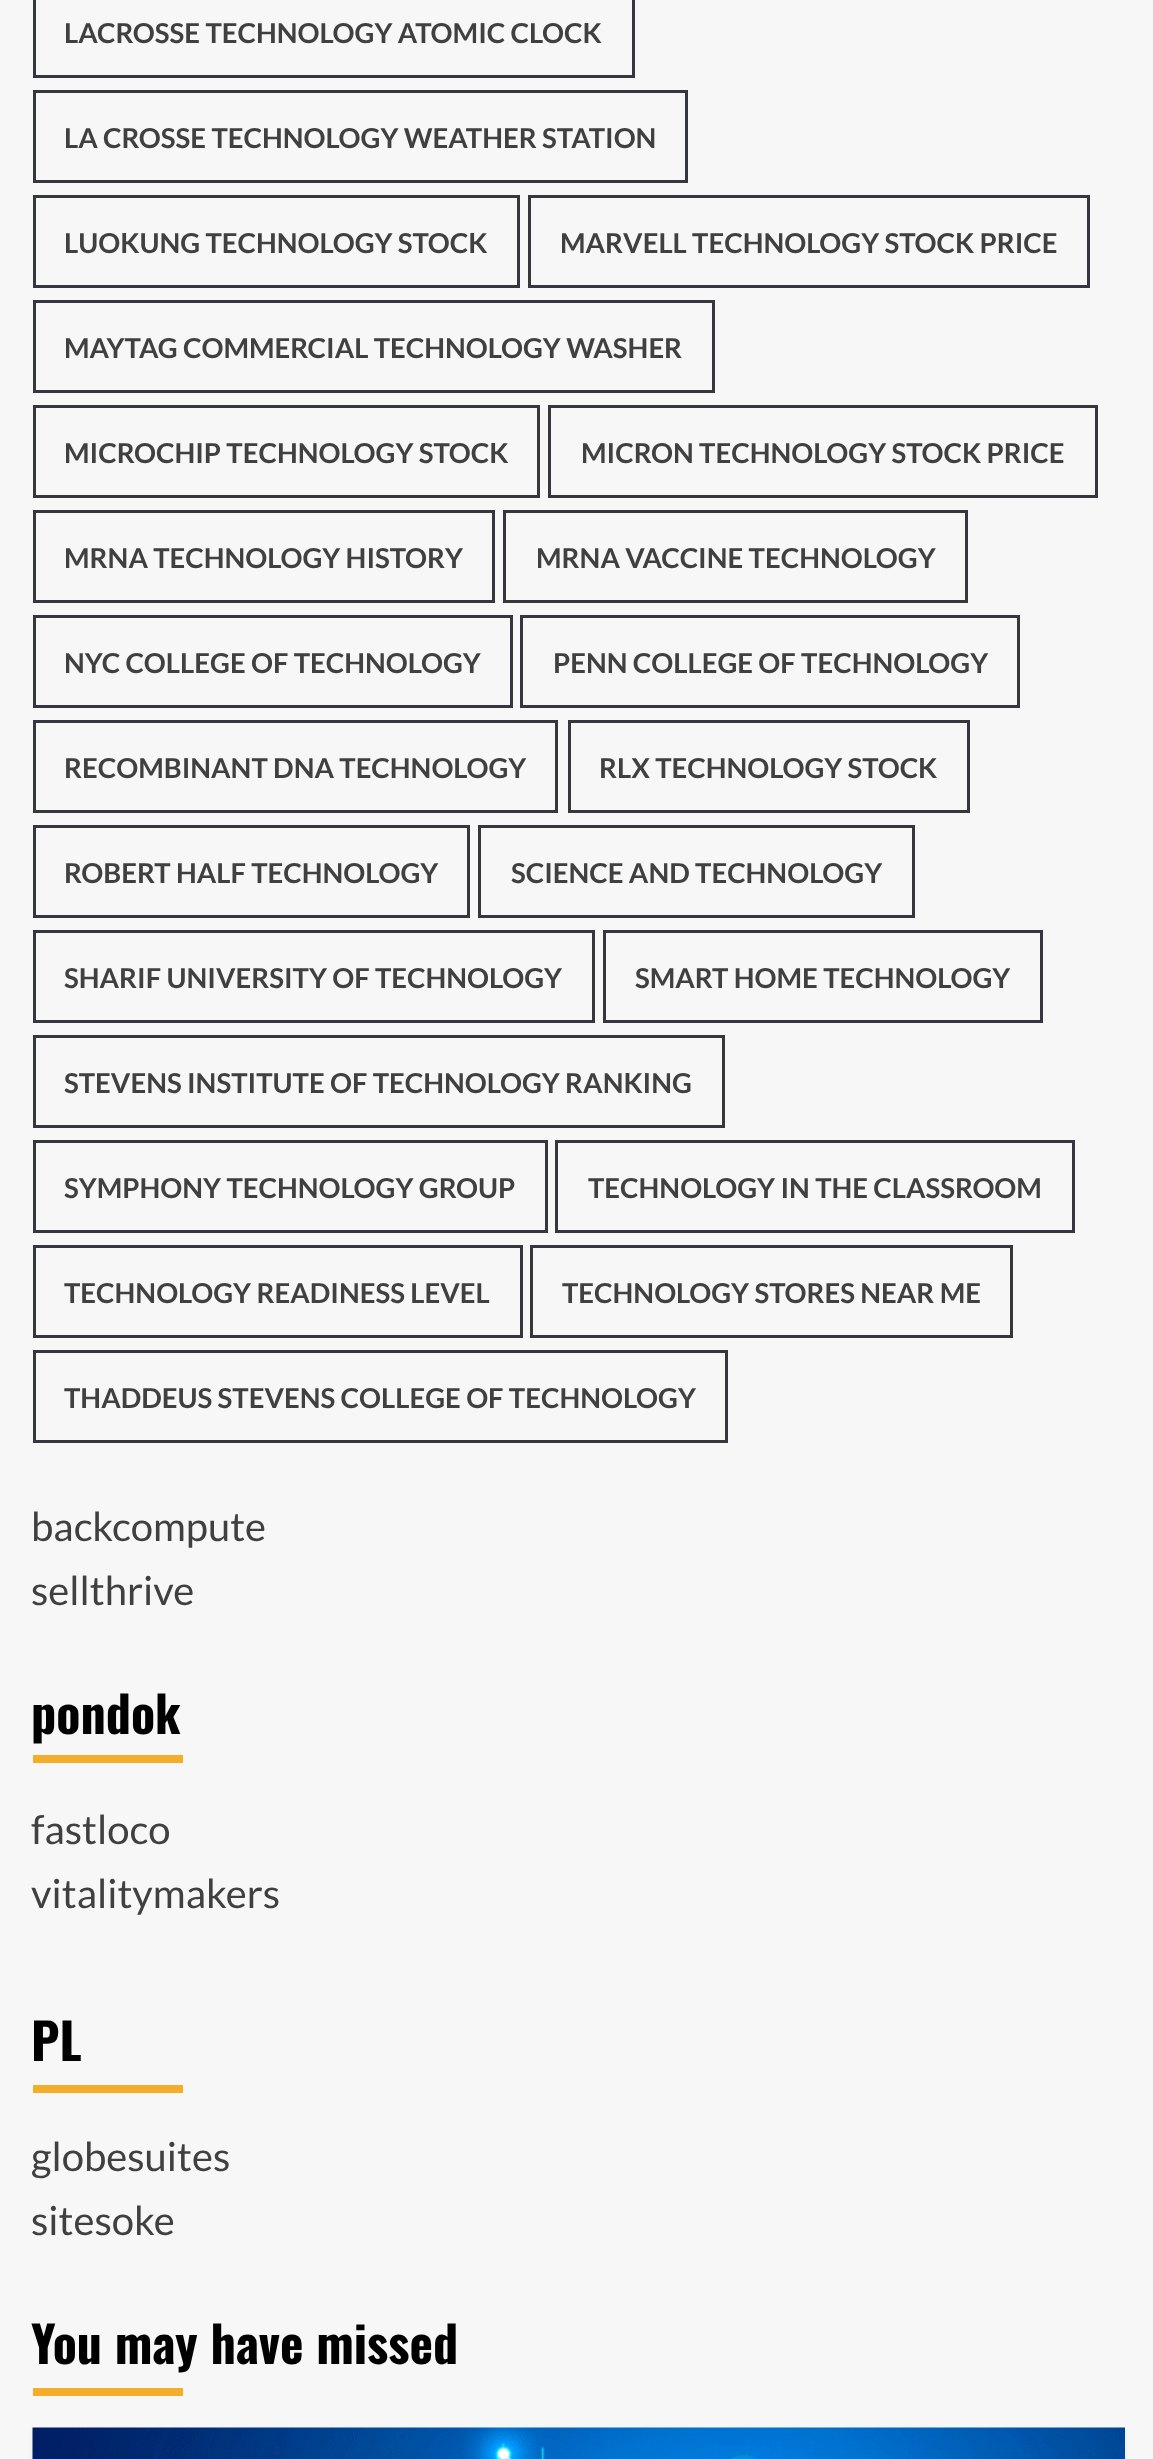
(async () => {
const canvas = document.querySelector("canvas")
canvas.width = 1153
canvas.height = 2459
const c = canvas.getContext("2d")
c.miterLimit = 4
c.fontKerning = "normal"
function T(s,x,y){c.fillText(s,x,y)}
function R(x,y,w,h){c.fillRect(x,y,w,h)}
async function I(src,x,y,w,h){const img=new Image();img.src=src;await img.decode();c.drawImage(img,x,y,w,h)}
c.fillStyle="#f7f7f7"
R(0,0,1153,2459)
c.strokeStyle="#35373c"
c.lineWidth=3
c.strokeRect(34.5,-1.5,599,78)
c.font="bold 27.5px Lato"
c.fillStyle="#404040"
T("LACROSSE TECHNOLOGY ATOMIC CLOCK",64,43)
c.strokeRect(34.5,91.5,652,90)
T("LA CROSSE TECHNOLOGY WEATHER STATION",64,148)
c.strokeRect(34.5,196.5,484,90)
T("LUOKUNG TECHNOLOGY STOCK",64,253)
c.strokeRect(529.5,196.5,559,90)
T("MARVELL TECHNOLOGY STOCK PRICE",560,253)
c.strokeRect(34.5,301.5,679,90)
T("MAYTAG COMMERCIAL TECHNOLOGY WASHER",64,358)
c.strokeRect(34.5,406.5,504,90)
T("MICROCHIP TECHNOLOGY STOCK",64,463)
c.strokeRect(549.5,406.5,547,90)
T("MICRON TECHNOLOGY STOCK PRICE",581,463)
c.strokeRect(34.5,511.5,459,90)
T("MRNA TECHNOLOGY HISTORY",64,568)
c.strokeRect(504.5,511.5,462,90)
T("MRNA VACCINE TECHNOLOGY",536,568)
c.strokeRect(34.5,616.5,477,90)
T("NYC COLLEGE OF TECHNOLOGY",64,673)
c.strokeRect(521.5,616.5,497,90)
T("PENN COLLEGE OF TECHNOLOGY",553,673)
c.strokeRect(34.5,721.5,522,90)
T("RECOMBINANT DNA TECHNOLOGY",64,778)
c.strokeRect(569.5,721.5,399,90)
T("RLX TECHNOLOGY STOCK",599,778)
c.strokeRect(34.5,826.5,434,90)
T("ROBERT HALF TECHNOLOGY",64,883)
c.strokeRect(479.5,826.5,434,90)
T("SCIENCE AND TECHNOLOGY",511,883)
c.strokeRect(34.5,931.5,559,90)
T("SHARIF UNIVERSITY OF TECHNOLOGY",64,988)
c.strokeRect(604.5,931.5,437,90)
T("SMART HOME TECHNOLOGY",635,988)
c.strokeRect(34.5,1036.5,689,90)
T("STEVENS INSTITUTE OF TECHNOLOGY RANKING",64,1093)
c.strokeRect(34.5,1141.5,512,90)
T("SYMPHONY TECHNOLOGY GROUP",64,1198)
c.strokeRect(556.5,1141.5,517,90)
T("TECHNOLOGY IN THE CLASSROOM",588,1198)
c.strokeRect(34.5,1246.5,487,90)
T("TECHNOLOGY READINESS LEVEL",64,1303)
c.strokeRect(531.5,1246.5,480,90)
T("TECHNOLOGY STORES NEAR ME",562,1303)
c.strokeRect(34.5,1351.5,692,90)
T("THADDEUS STEVENS COLLEGE OF TECHNOLOGY",64,1408)
c.font="40px Lato"
T("backcompute",31,1541)
T("sellthrive",31,1605)
c.font="bold 50px Oswald"
c.fillStyle="#000"
T("pondok",31,1734)
c.fillStyle="#f3ad29"
R(33,1755,150,8)
c.font="40px Lato"
c.fillStyle="#404040"
T("fastloco",31,1844)
T("vitalitymakers",31,1908)
c.font="bold 50px Oswald"
c.fillStyle="#000"
T("PL",31,2061)
c.fillStyle="#f3ad29"
R(33,2085,150,8)
c.font="40px Lato"
c.fillStyle="#404040"
T("globesuites",31,2171)
T("sitesoke",31,2235)
c.font="bold 50px Oswald"
c.fillStyle="#000"
T("You may have missed",31,2364)
c.fillStyle="#f3ad29"
R(33,2388,150,8)
c.fillStyle="#0000000d"
c.filter="blur(2.5px)"
c.beginPath()
c.rect(33,2430,1092,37)
c.fill()
c.filter="none"
await I("1.png",32,2427,1093,32)
})()
